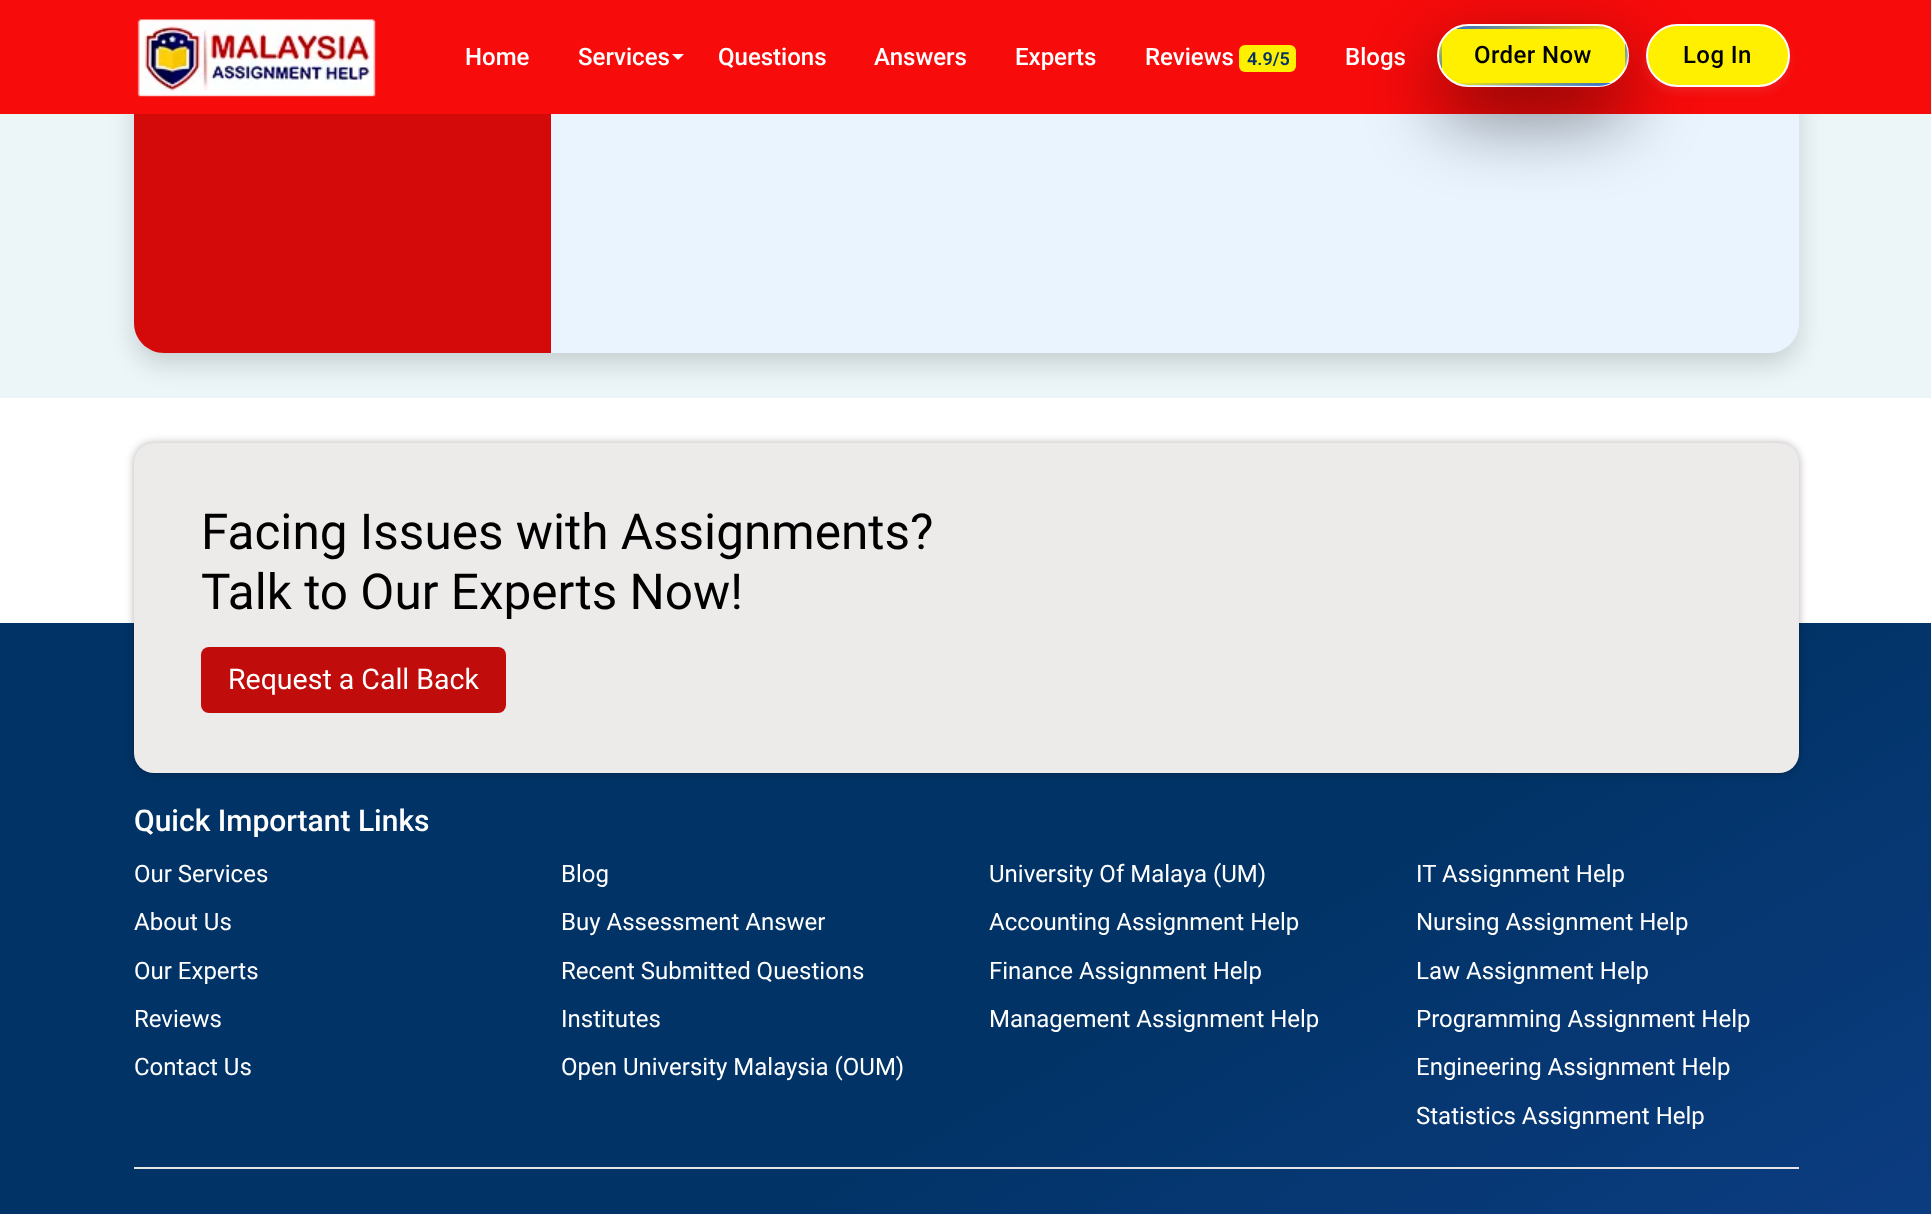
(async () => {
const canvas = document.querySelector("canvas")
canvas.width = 1931
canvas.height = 1214
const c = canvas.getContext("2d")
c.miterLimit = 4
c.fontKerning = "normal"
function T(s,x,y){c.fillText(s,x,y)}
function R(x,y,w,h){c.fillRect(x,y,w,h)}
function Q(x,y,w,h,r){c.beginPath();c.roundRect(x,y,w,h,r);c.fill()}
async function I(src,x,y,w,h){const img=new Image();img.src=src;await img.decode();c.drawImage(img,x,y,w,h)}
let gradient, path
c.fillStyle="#fff"
R(0,0,1931,1214)
c.fillStyle="#ecf6f8"
R(0,114,1931,284)
c.fillStyle="#00000026"
c.filter="blur(12px)"
c.beginPath()
c.roundRect(134,-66,1665,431,30)
c.fill()
c.filter="none"
c.fillStyle="#d4090a"
path = new Path2D("M164-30h387v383h-387c-16.5 0-30-13.5-30-30v-323c0-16.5 13.5-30 30-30z")
c.fill(path)
c.fillStyle="#e9f4ff"
path = new Path2D("M551-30h1218c16.5 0 30 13.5 30 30v323c0 16.5-13.5 30-30 30h-1218z")
c.fill(path)
c.fillStyle="#f70b0b"
R(0,0,1931,114)
await I("1.png",137,19,239,78)
c.font="500 24px Roboto"
c.fillStyle="#fff"
T("Home",465,65)
T("Services",578,65)
path = new Path2D("M672 54h12l-6 6z")
c.fill(path)
T("Questions",718,65)
T("Answers",874,65)
T("Experts",1015,65)
T("Reviews",1145,65)
c.fillStyle="#fff000"
Q(1239,45,57,27,6)
c.font="600 18px Roboto"
c.fillStyle="#063465"
T("4.9/5",1247,65)
c.font="500 24px Roboto"
c.fillStyle="#fff"
T("Blogs",1345,65)
c.fillStyle="#00000080"
c.filter="blur(37.5px)"
c.beginPath()
c.roundRect(1437,54,192,63,31.5)
c.fill()
c.filter="none"
c.fillStyle="#fff000"
c.beginPath()
c.roundRect(1438,25,190,61,30.5)
c.fill()
c.strokeStyle="#fff"
c.lineWidth=2
c.stroke()
c.save()
c.beginPath()
c.roundRect(1439,26,189,60,30)
c.clip()
gradient = c.createLinearGradient(1628,27,1439,27)
gradient.addColorStop(0,"#2662d900")
gradient.addColorStop(1,"#2662d9")
c.fillStyle = gradient
R(1456,26,155,3)
gradient = c.createLinearGradient(1440,26,1440,86)
gradient.addColorStop(0,"#2662d900")
gradient.addColorStop(1,"#2662d9")
c.fillStyle = gradient
R(1439,43,3,26)
c.restore()
c.letterSpacing="0.4px"
c.fillStyle="#000"
T("Order Now",1474,63)
c.save()
c.beginPath()
c.roundRect(1439,26,189,60,30)
c.clip()
gradient = c.createLinearGradient(1626,86,1626,26)
gradient.addColorStop(0,"#2662d900")
gradient.addColorStop(1,"#2662d9")
c.fillStyle = gradient
R(1625,43,3,26)
gradient = c.createLinearGradient(1439,84,1628,84)
gradient.addColorStop(0,"#2662d900")
gradient.addColorStop(1,"#2662d9")
c.fillStyle = gradient
R(1456,83,155,3)
c.restore()
c.fillStyle="#e54b4b4d"
c.filter="blur(4px)"
c.beginPath()
c.roundRect(1646,29,144,63,31.5)
c.fill()
c.filter="none"
c.fillStyle="#fff000"
c.beginPath()
c.roundRect(1647,25,142,61,30.5)
c.fill()
c.stroke()
c.fillStyle="#000"
T("Log In",1683,63)
gradient = c.createLinearGradient(488,343,1444,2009)
gradient.addColorStop(.45,"#013366")
gradient.addColorStop(1,"#144394")
c.fillStyle = gradient
R(0,623,1931,591)
c.fillStyle="#0000004d"
c.filter="blur(4.5px)"
c.beginPath()
c.roundRect(134,443,1665,330,20)
c.fill()
c.filter="none"
c.fillStyle="#edeaea"
Q(134,443,1665,330,20)
c.letterSpacing="0px"
c.font="49.5px Roboto"
c.fillStyle="#000"
T("Facing Issues with Assignments?",201,549)
T("Talk to Our Experts Now!",201,609)
c.fillStyle="#c10c0c"
Q(201,647,305,66,8)
c.font="28.5px Roboto"
c.fillStyle="#fff"
T("Request a Call Back",228,689)
c.font="500 30px Roboto"
T("Quick Important Links",134,831)
c.font="24px Roboto"
T("Our Services",134,882)
T("About Us",134,930)
T("Our Experts",134,979)
T("Reviews",134,1027)
T("Contact Us",134,1075)
T("Blog",561,882)
T("Buy Assessment Answer",561,930)
T("Recent Submitted Questions",561,979)
T("Institutes",561,1027)
T("Open University Malaysia (OUM)",561,1075)
T("University Of Malaya (UM)",989,882)
T("Accounting Assignment Help",989,930)
T("Finance Assignment Help",989,979)
T("Management Assignment Help",989,1027)
T("IT Assignment Help",1416,882)
T("Nursing Assignment Help",1416,930)
T("Law Assignment Help",1416,979)
T("Programming Assignment Help",1416,1027)
T("Engineering Assignment Help",1416,1075)
T("Statistics Assignment Help",1416,1124)
c.fillStyle="#e6e6e6"
R(134,1167,1665,2)
})()
